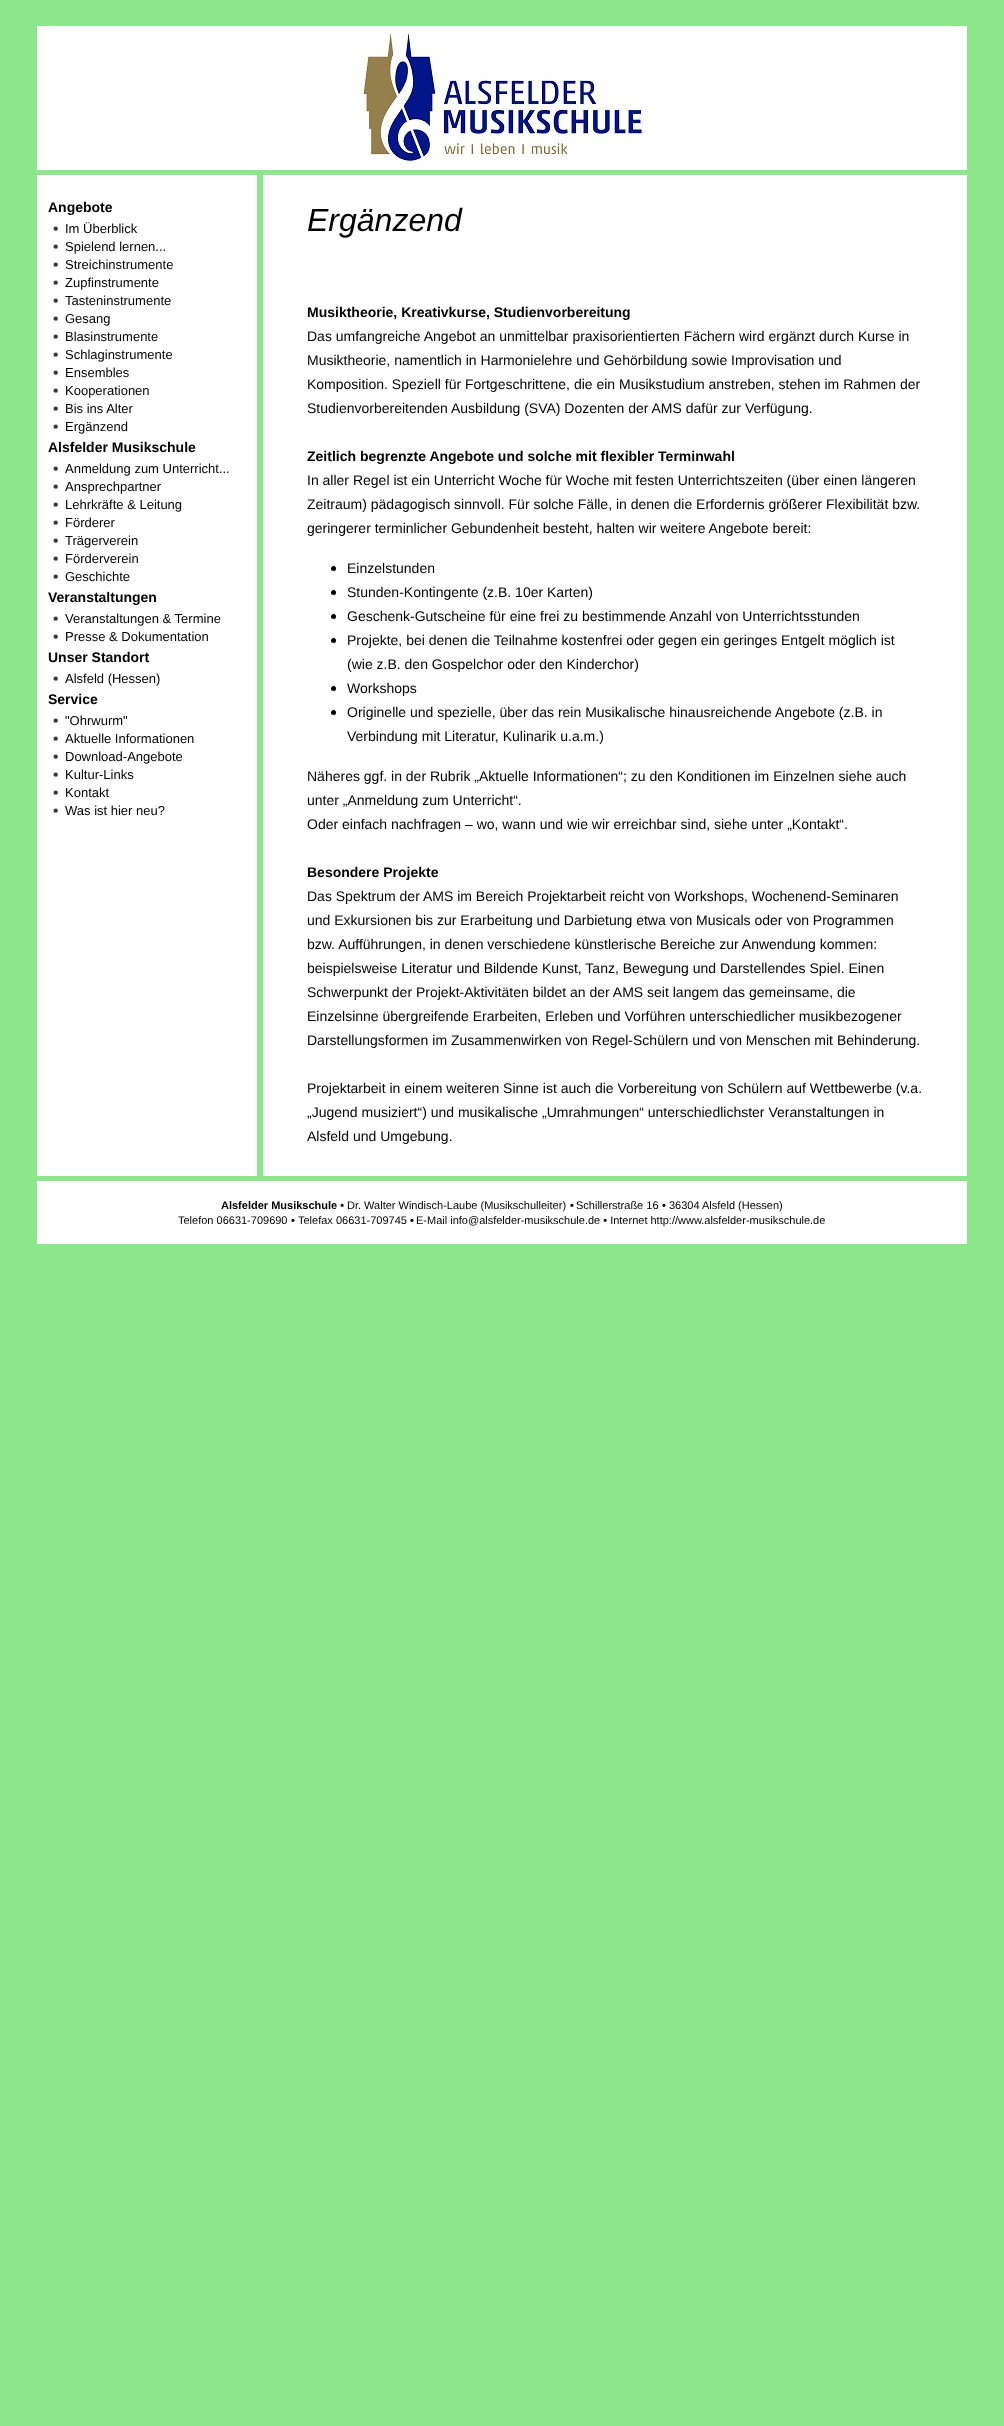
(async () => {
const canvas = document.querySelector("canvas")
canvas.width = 1004
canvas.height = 2426
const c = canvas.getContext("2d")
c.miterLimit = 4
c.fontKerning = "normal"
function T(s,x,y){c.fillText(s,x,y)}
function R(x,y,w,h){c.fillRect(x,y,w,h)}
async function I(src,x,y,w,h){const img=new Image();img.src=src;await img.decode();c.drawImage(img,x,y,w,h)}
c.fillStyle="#8ce78c"
R(0,0,1004,2426)
c.fillStyle="#fff"
R(37,26,930,1150)
await I("1.png",359,33,287,129)
c.fillStyle="#8ce78c"
R(37,170,930,5)
c.font="bold 14px Liberation Sans"
c.fillStyle="#000"
T("Angebote",48,212)
await I("2.png",53,226,5,5)
c.font="13px Liberation Sans"
T("Im Überblick",65,233)
await I("2.png",53,244,5,5)
T("Spielend lernen...",65,251)
await I("2.png",53,262,5,5)
T("Streichinstrumente",65,269)
await I("2.png",53,280,5,5)
T("Zupfinstrumente",65,287)
await I("2.png",53,298,5,5)
T("Tasteninstrumente",65,305)
await I("2.png",53,316,5,5)
T("Gesang",65,323)
await I("2.png",53,334,5,5)
T("Blasinstrumente",65,341)
await I("2.png",53,352,5,5)
T("Schlaginstrumente",65,359)
await I("2.png",53,370,5,5)
T("Ensembles",65,377)
await I("2.png",53,388,5,5)
T("Kooperationen",65,395)
await I("2.png",53,406,5,5)
T("Bis ins Alter",65,413)
await I("2.png",53,424,5,5)
T("Ergänzend",65,431)
c.font="bold 14px Liberation Sans"
T("Alsfelder Musikschule",48,452)
await I("2.png",53,466,5,5)
c.font="13px Liberation Sans"
T("Anmeldung zum Unterricht...",65,473)
await I("2.png",53,484,5,5)
T("Ansprechpartner",65,491)
await I("2.png",53,502,5,5)
T("Lehrkräfte & Leitung",65,509)
await I("2.png",53,520,5,5)
T("Förderer",65,527)
await I("2.png",53,538,5,5)
T("Trägerverein",65,545)
await I("2.png",53,556,5,5)
T("Förderverein",65,563)
await I("2.png",53,574,5,5)
T("Geschichte",65,581)
c.font="bold 14px Liberation Sans"
T("Veranstaltungen",48,602)
await I("2.png",53,616,5,5)
c.font="13px Liberation Sans"
T("Veranstaltungen & Termine",65,623)
await I("2.png",53,634,5,5)
T("Presse & Dokumentation",65,641)
c.font="bold 14px Liberation Sans"
T("Unser Standort",48,662)
await I("2.png",53,676,5,5)
c.font="13px Liberation Sans"
T("Alsfeld (Hessen)",65,683)
c.font="bold 14px Liberation Sans"
T("Service",48,704)
await I("2.png",53,718,5,5)
c.font="13px Liberation Sans"
T("\"Ohrwurm\"",65,725)
await I("2.png",53,736,5,5)
T("Aktuelle Informationen",65,743)
await I("2.png",53,754,5,5)
T("Download-Angebote",65,761)
await I("2.png",53,772,5,5)
T("Kultur-Links",65,779)
await I("2.png",53,790,5,5)
T("Kontakt",65,797)
await I("2.png",53,808,5,5)
T("Was ist hier neu?",65,815)
c.fillStyle="#8ce78c"
R(257,175,6,1001)
c.font="italic 32px Liberation Sans"
c.fillStyle="#000"
T("Ergänzend",307,231)
c.font="bold 14px Liberation Sans"
T("Musiktheorie, Kreativkurse, Studienvorbereitung",307,317)
c.font="14px Liberation Sans"
T("Das umfangreiche Angebot an unmittelbar praxisorientierten Fächern wird ergänzt durch Kurse in",307,341)
T("Musiktheorie, namentlich in Harmonielehre und Gehörbildung sowie Improvisation und",307,365)
T("Komposition. Speziell für Fortgeschrittene, die ein Musikstudium anstreben, stehen im Rahmen der",307,389)
T("Studienvorbereitenden",307,413)
T("Ausbildung (SVA) Dozenten der AMS dafür zur Verfügung.",451,413)
c.font="bold 14px Liberation Sans"
T("Zeitlich begrenzte Angebote und solche mit flexibler Terminwahl",307,461)
c.font="14px Liberation Sans"
T("In aller Regel ist ein Unterricht Woche für Woche mit festen Unterrichtszeiten (über einen längeren",307,485)
T("Zeitraum) pädagogisch sinnvoll. Für solche Fälle, in denen die Erfordernis größerer Flexibilität bzw.",307,509)
T("geringerer terminlicher Gebundenheit besteht, halten wir weitere Angebote bereit:",307,533)
c.beginPath()
c.arc(333.5,568.5,2.5,0,7)
c.fill()
T("Einzelstunden",347,573)
c.beginPath()
c.arc(333.5,592.5,2.5,0,7)
c.fill()
T("Stunden-Kontingente (z.B. 10er Karten)",347,597)
c.beginPath()
c.arc(333.5,616.5,2.5,0,7)
c.fill()
T("Geschenk-Gutscheine für eine frei zu bestimmende Anzahl von Unterrichtsstunden",347,621)
c.beginPath()
c.arc(333.5,640.5,2.5,0,7)
c.fill()
T("Projekte, bei denen die Teilnahme kostenfrei oder gegen ein geringes Entgelt möglich ist",347,645)
T("(wie z.B. den Gospelchor oder den Kinderchor)",347,669)
c.beginPath()
c.arc(333.5,688.5,2.5,0,7)
c.fill()
T("Workshops",347,693)
c.beginPath()
c.arc(333.5,712.5,2.5,0,7)
c.fill()
T("Originelle und spezielle, über das rein Musikalische hinausreichende Angebote (z.B. in",347,717)
T("Verbindung mit Literatur, Kulinarik u.a.m.)",347,741)
T("Näheres ggf. in der Rubrik „Aktuelle Informationen“; zu den Konditionen im Einzelnen siehe auch",307,781)
T("unter „Anmeldung zum Unterricht“.",307,805)
T("Oder einfach nachfragen – wo, wann und wie wir erreichbar sind, siehe unter „Kontakt“.",307,829)
c.font="bold 14px Liberation Sans"
T("Besondere Projekte",307,877)
c.font="14px Liberation Sans"
T("Das Spektrum der AMS im Bereich Projektarbeit reicht von Workshops, Wochenend-Seminaren",307,901)
T("und Exkursionen bis zur Erarbeitung und Darbietung etwa von Musicals oder von Programmen",307,925)
T("bzw. Aufführungen, in denen verschiedene künstlerische Bereiche zur Anwendung kommen:",307,949)
T("beispielsweise Literatur und Bildende Kunst, Tanz, Bewegung und Darstellendes Spiel. Einen",307,973)
T("Schwerpunkt der Projekt-Aktivitäten bildet an der AMS seit langem das gemeinsame, die",307,997)
T("Einzelsinne übergreifende Erarbeiten, Erleben und Vorführen unterschiedlicher musikbezogener",307,1021)
T("Darstellungsformen im Zusammenwirken von Regel-Schülern und von Menschen mit Behinderung.",307,1045)
T("Projektarbeit in einem weiteren Sinne ist auch die Vorbereitung von Schülern auf Wettbewerbe (v.a.",307,1093)
T("„Jugend musiziert“) und musikalische „Umrahmungen“ unterschiedlichster Veranstaltungen in",307,1117)
T("Alsfeld und Umgebung.",307,1141)
c.fillStyle="#fff"
R(37,1181,930,63)
c.font="bold 11px Liberation Sans"
c.fillStyle="#000"
T("Alsfelder Musikschule •",221,1209)
c.font="11px Liberation Sans"
T("Dr. Walter Windisch-Laube (Musikschulleiter)",347,1209)
c.font="bold 11px Liberation Sans"
T("•",570,1209)
c.font="11px Liberation Sans"
T("Schillerstraße 16",576,1209)
c.font="bold 11px Liberation Sans"
T("•",662,1209)
c.font="11px Liberation Sans"
T("36304 Alsfeld (Hessen)",669,1209)
T("Telefon 06631-709690",178,1224)
c.font="bold 11px Liberation Sans"
T("•",291,1224)
c.font="11px Liberation Sans"
T("Telefax 06631-709745",298,1224)
c.font="bold 11px Liberation Sans"
T("•",410,1224)
c.font="11px Liberation Sans"
T("E-Mail info@alsfelder-musikschule.de • Internet http://www.alsfelder-musikschule.de",416,1224)
})()
